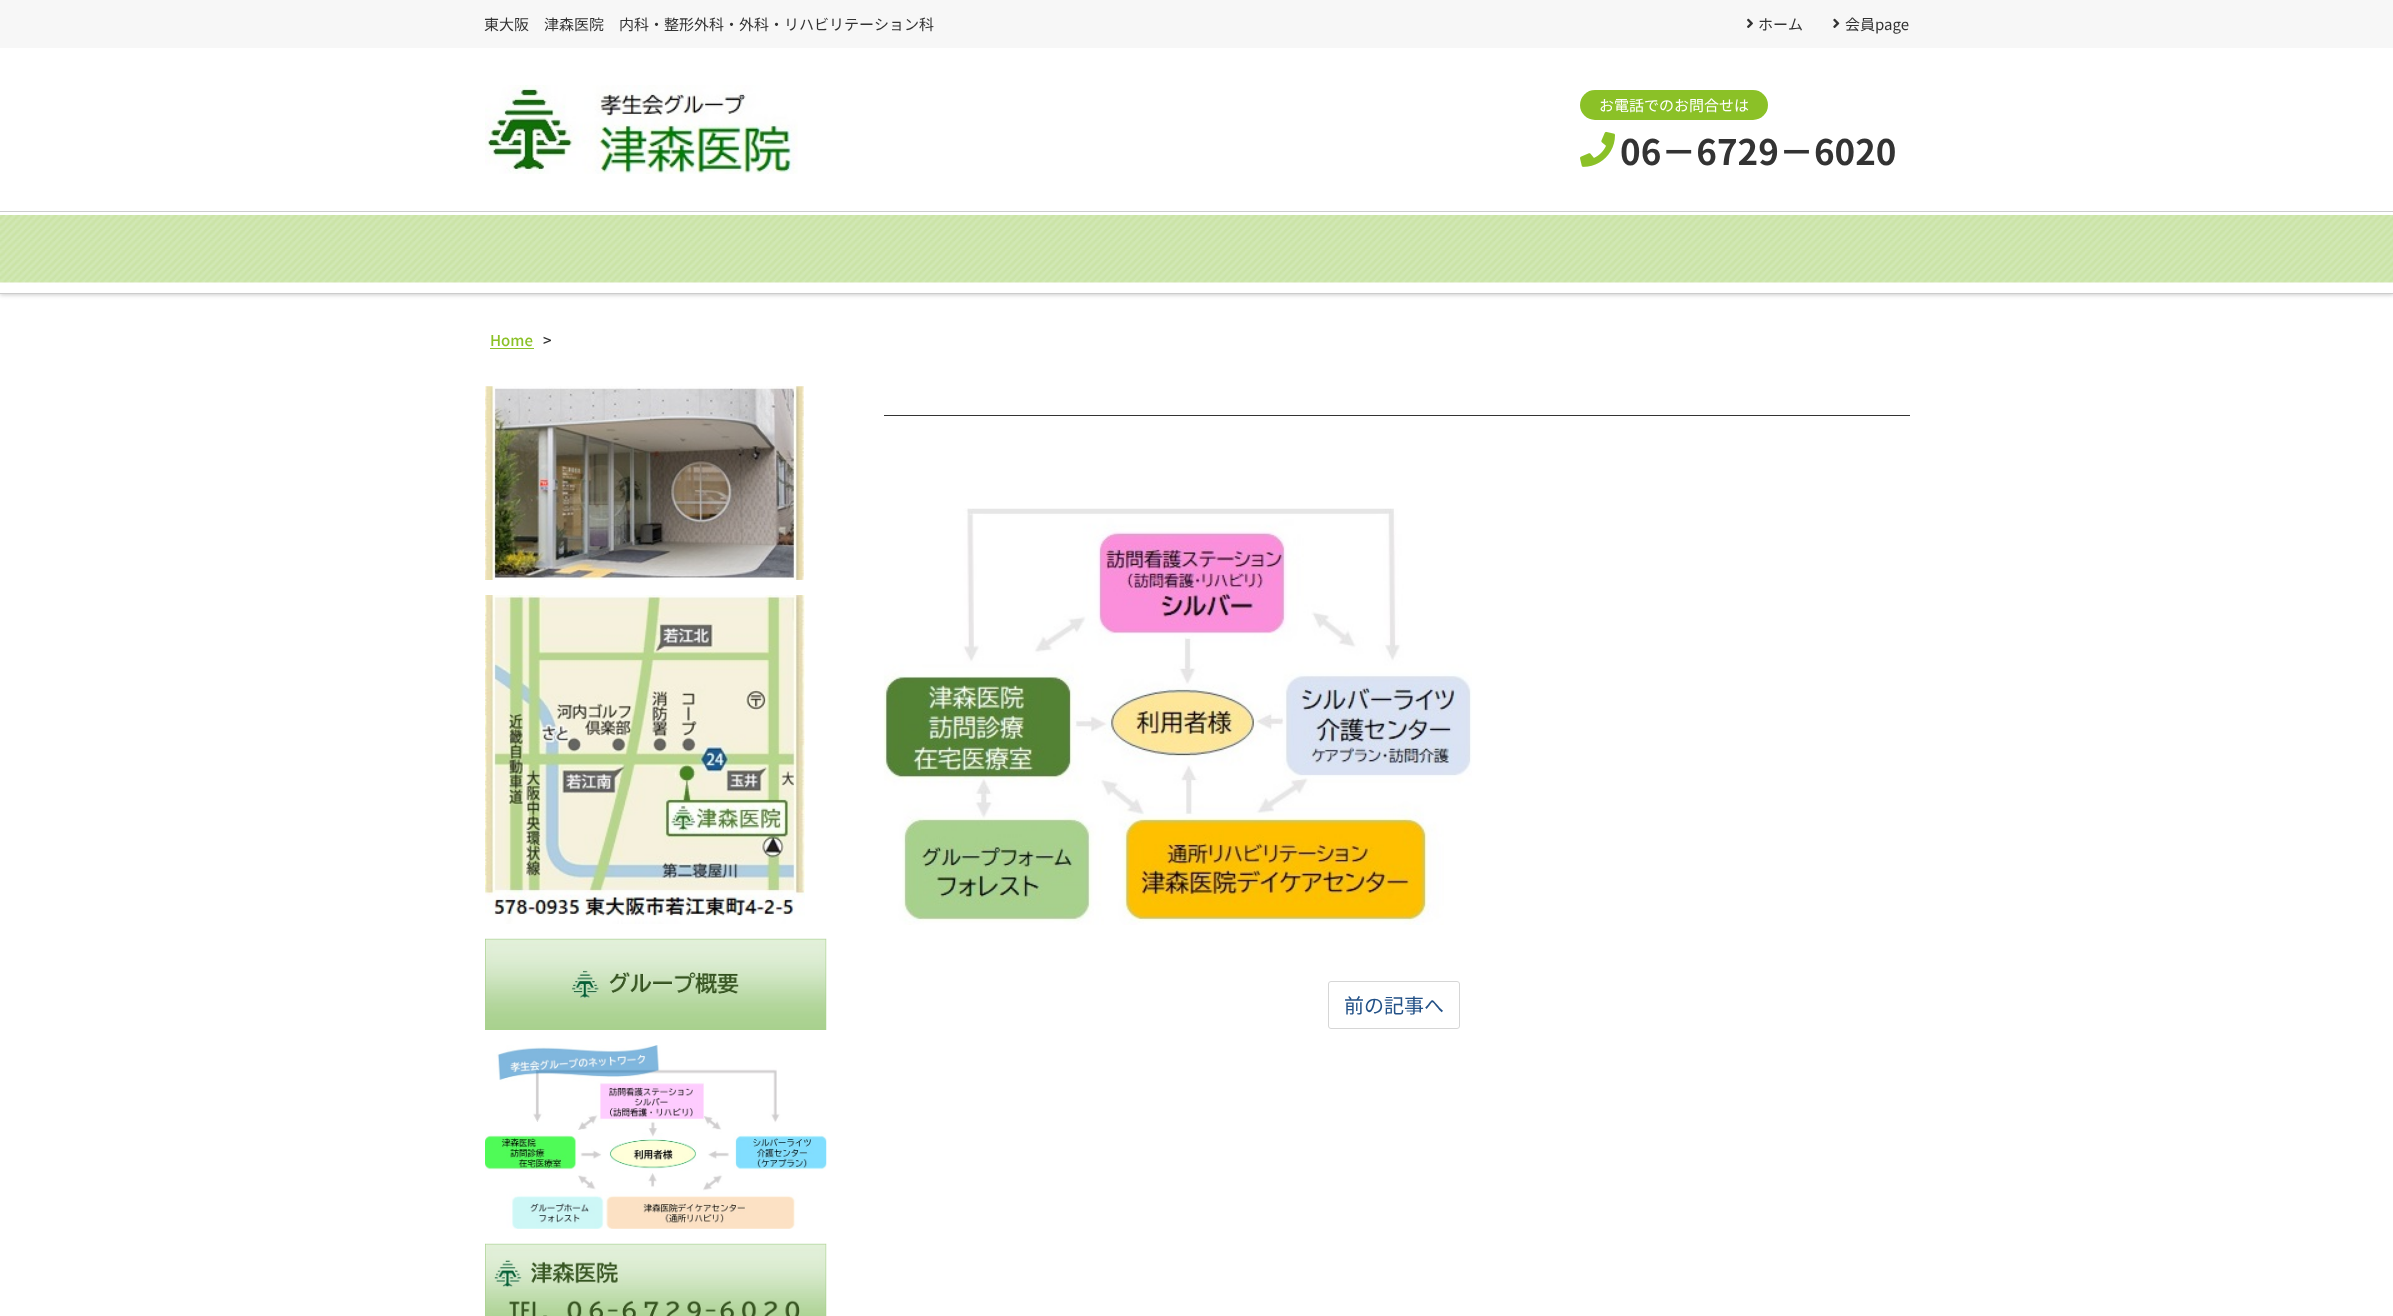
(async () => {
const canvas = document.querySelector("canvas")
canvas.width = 2393
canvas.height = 1316
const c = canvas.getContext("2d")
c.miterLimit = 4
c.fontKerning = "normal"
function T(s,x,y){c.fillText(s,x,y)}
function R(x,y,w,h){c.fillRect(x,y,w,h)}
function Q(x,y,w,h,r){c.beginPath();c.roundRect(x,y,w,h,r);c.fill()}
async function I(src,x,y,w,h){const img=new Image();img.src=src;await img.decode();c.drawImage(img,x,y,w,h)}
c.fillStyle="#fff"
R(0,0,2393,1316)
c.fillStyle="#00000033"
c.filter="blur(2px)"
c.beginPath()
c.rect(0,1,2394,294)
c.fill()
c.filter="none"
c.fillStyle="#fff"
R(0,48,2393,245)
c.fillStyle="#f7f7f7"
R(0,0,2393,48)
c.font="15px Noto Sans JP"
c.fillStyle="#333"
T("東大阪　津森医院　内科・整形外科・外科・リハビリテーション科",484,30)
await I("1.png",1747,18,6,10)
T("ホーム",1758,30)
await I("2.png",1833,18,7,10)
T("会員page",1845,30)
await I("3.png",485,85,313,89)
c.fillStyle="#8bc127"
Q(1580,90,188,30,15)
c.fillStyle="#fff"
T("お電話でのお問合せは",1599,111)
await I("4.png",1580,131,35,36)
c.font="bold 35px Noto Sans JP"
c.fillStyle="#333"
T("06－6729－6020",1620,165)
c.fillStyle="#ccc"
R(0,211,2393,1)
R(0,293,2393,1)
await I("5.png",0,215,2393,68)
c.font="500 15px Noto Sans JP"
c.fillStyle="#8bc127"
T("Home",490,346)
R(490,348,44,1)
c.fillStyle="#333"
T(">",543,346)
await I("6.png",485,386,319,194)
await I("7.png",485,595,320,329)
await I("8.png",485,938,342,92)
await I("9.png",485,1045,342,184)
await I("10.png",485,1243,342,73)
R(884,415,1026,1)
await I("11.png",883,508,589,417)
c.beginPath()
c.roundRect(1328.5,981.5,131,47,2.5)
c.strokeStyle="#d6d6d6"
c.stroke()
c.font="20px Noto Sans JP"
c.fillStyle="#235187"
T("前の記事へ",1344,1013)
})()
